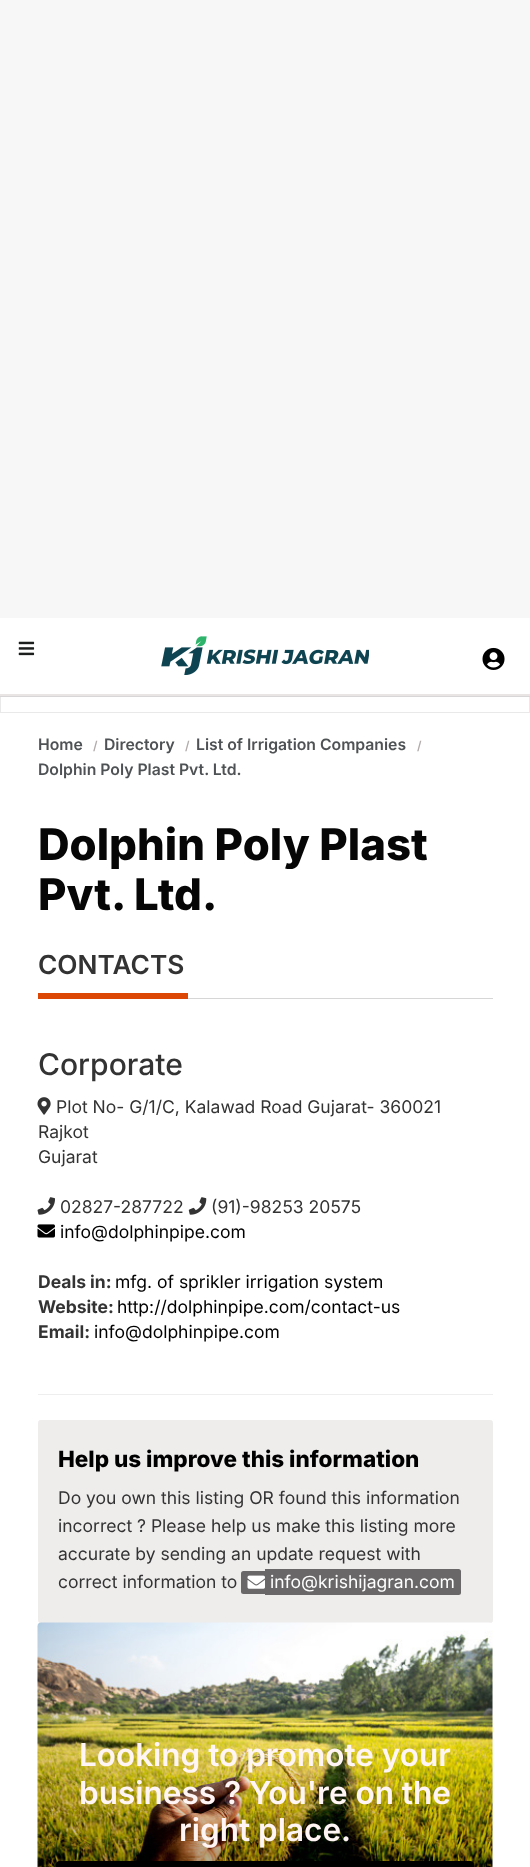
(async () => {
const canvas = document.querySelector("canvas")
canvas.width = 530
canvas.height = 1867
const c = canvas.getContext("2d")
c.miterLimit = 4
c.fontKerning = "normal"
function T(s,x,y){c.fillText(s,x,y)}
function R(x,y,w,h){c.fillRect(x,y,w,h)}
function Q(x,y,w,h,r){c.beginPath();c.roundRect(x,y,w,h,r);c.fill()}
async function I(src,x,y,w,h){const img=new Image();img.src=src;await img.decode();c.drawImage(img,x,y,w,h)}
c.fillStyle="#fff"
R(0,0,530,1867)
c.fillStyle="#f7f7f7"
R(0,0,530,618)
c.fillStyle="#eae5e5"
R(0,694,530,3)
await I("1.png",18,641,17,15)
await I("2.png",161,636,208,39)
await I("3.png",482,647,23,23)
c.strokeStyle="#afafb145"
c.strokeRect(.5,696.5,529,16)
c.font="600 15.75px Inter"
c.fillStyle="#4f5254"
T("Home",38,750)
c.font="600 12px Inter"
c.fillStyle="#b3acac"
T("/",93,750)
c.font="600 15.75px Inter"
c.fillStyle="#4f5254"
T("Directory",104,750)
c.font="600 12px Inter"
c.fillStyle="#b3acac"
T("/",185,750)
c.font="600 15.75px Inter"
c.fillStyle="#4f5254"
T("List of Irrigation Companies",196,750)
c.font="600 12px Inter"
c.fillStyle="#b3acac"
T("/",417,750)
c.font="600 15.75px Inter"
c.fillStyle="#4f5254"
T("Dolphin Poly Plast Pvt. Ltd.",38,775)
c.font="800 43.75px Inter"
c.fillStyle="#060606"
T("Dolphin Poly Plast",38,860)
T("Pvt. Ltd.",38,910)
c.fillStyle="#d6d6d6"
R(188,998,305,1)
c.font="600 26.25px Inter"
c.fillStyle="#333"
T("CONTACTS",38,974)
c.fillStyle="#dc4706"
R(38,993,150,6)
c.font="500 30px Inter"
c.fillStyle="#333"
T("Corporate",38,1075)
await I("4.png",37,1097,14,18)
c.font="17.5px Inter"
T("Plot No- G/1/C, Kalawad Road Gujarat- 360021",56,1113)
T("Rajkot",38,1138)
T("Gujarat",38,1163)
await I("5.png",37,1197,18,18)
T("02827-287722",60,1213)
await I("6.png",188,1197,19,18)
T("(91)-98253 20575",211,1213)
await I("7.png",37,1224,18,14)
c.fillStyle="#000"
T("info@dolphinpipe.com",60,1238)
c.font="bold 17.5px Inter"
c.fillStyle="#333"
T("Deals in:",38,1288)
c.font="17.5px Inter"
c.fillStyle="#000"
T("mfg. of sprikler irrigation system",115,1288)
c.font="bold 17.5px Inter"
c.fillStyle="#333"
T("Website:",38,1313)
c.font="17.5px Inter"
c.fillStyle="#000"
T("http://dolphinpipe.com/contact-us",117,1313)
c.font="bold 17.5px Inter"
c.fillStyle="#333"
T("Email:",38,1338)
c.font="17.5px Inter"
c.fillStyle="#000"
T("info@dolphinpipe.com",94,1338)
c.fillStyle="#eee"
R(38,1394,455,1)
c.fillStyle="#efecec"
c.beginPath()
c.roundRect(38.5,1420.5,454,202,2)
c.fill()
c.strokeStyle="#efecec"
c.stroke()
c.font="800 22.5px Inter"
c.fillStyle="#000"
T("Help us improve this information",58,1467)
c.font="17.5px Inter"
c.fillStyle="#333"
T("Do you own this listing OR found this information",58,1504)
T("incorrect ? Please help us make this listing more",58,1532)
T("accurate by sending an update request with",58,1560)
T("correct information to",58,1588)
c.fillStyle="#696767"
c.beginPath()
c.roundRect(241,1571,24,23,[2.5,0,0,2.5])
c.fill()
R(265,1569,5,26)
c.beginPath()
c.roundRect(270,1569,191,26,[0,2.5,2.5,0])
c.fill()
await I("8.png",247,1575,18,14)
c.fillStyle="#fff"
T("info@krishijagran.com",270,1588)
await I("9.png",37,1622,456,245)
c.font="600 31.5px Inter"
c.fillStyle="#fff5f5"
T("Looking to promote your",79,1766)
T("business ? You're on the",79,1804)
T("right place.",179,1841)
c.fillStyle="#000"
Q(56,1861,418,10,4)
})()
